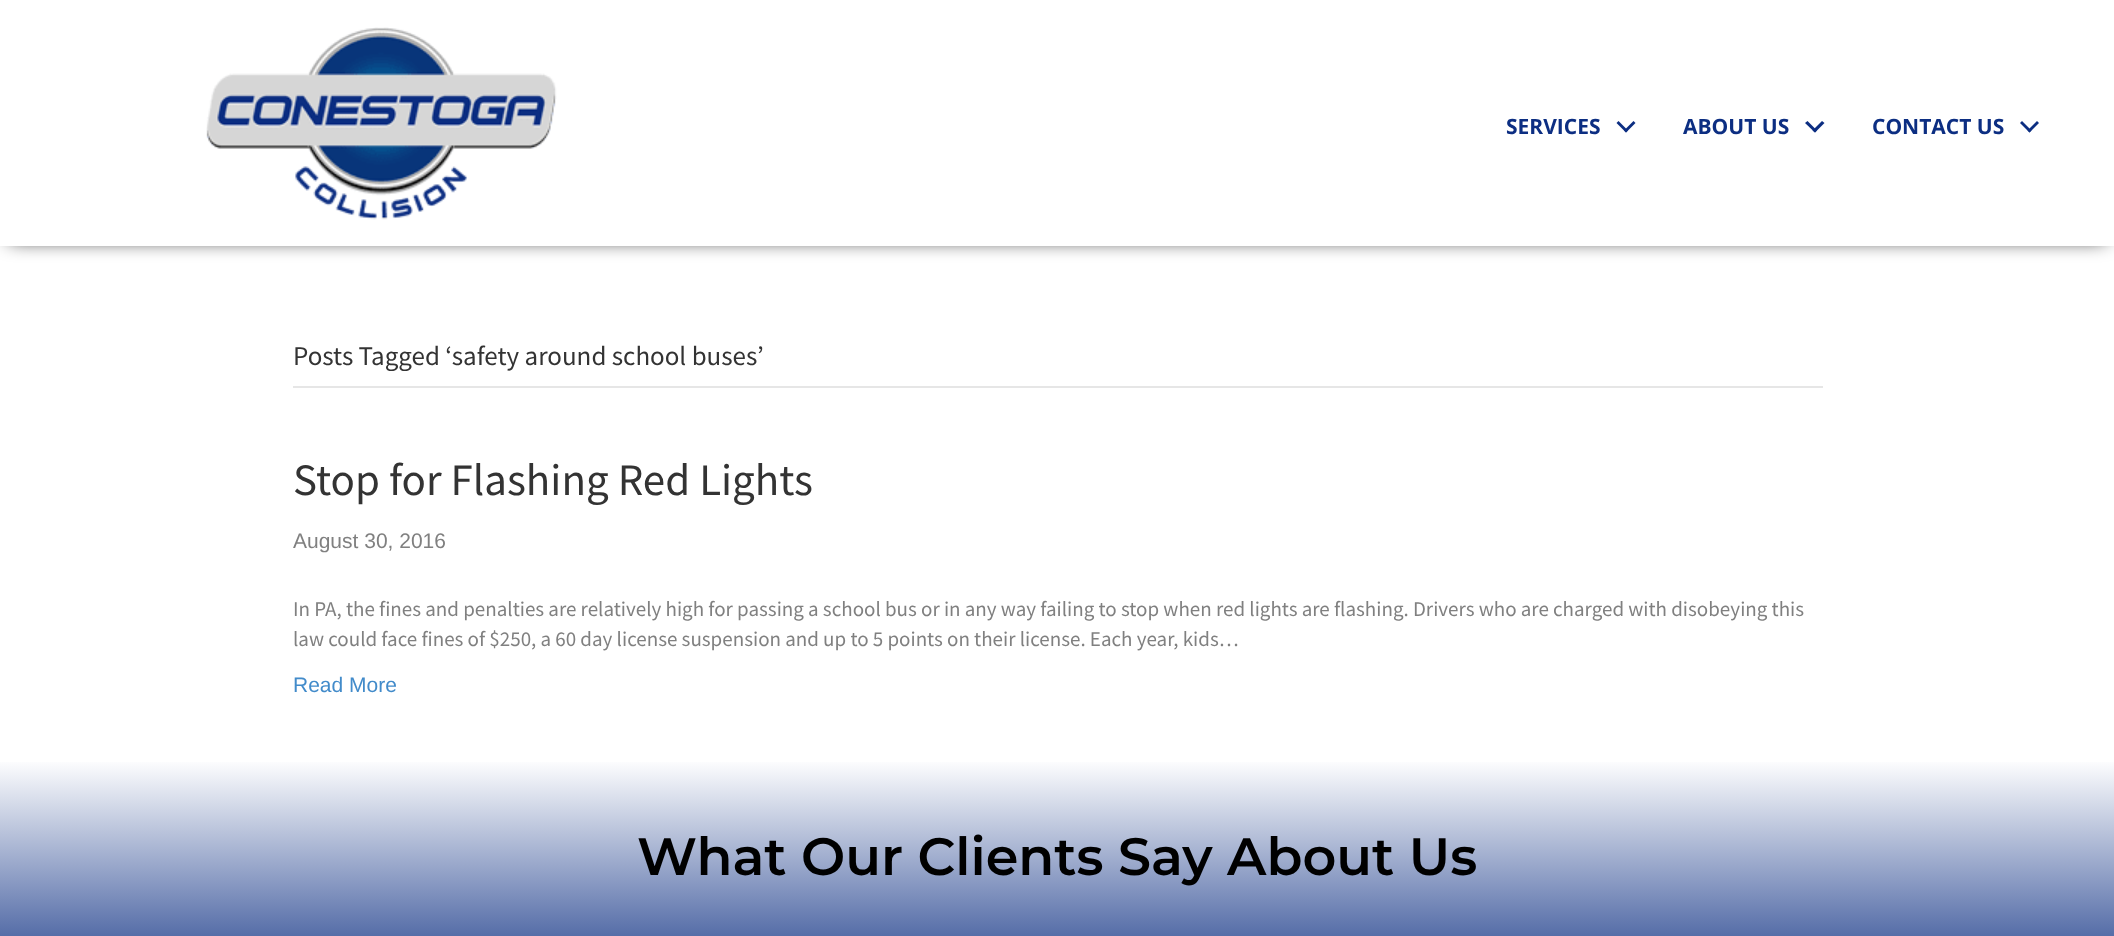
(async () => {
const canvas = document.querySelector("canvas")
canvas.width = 2114
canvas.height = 936
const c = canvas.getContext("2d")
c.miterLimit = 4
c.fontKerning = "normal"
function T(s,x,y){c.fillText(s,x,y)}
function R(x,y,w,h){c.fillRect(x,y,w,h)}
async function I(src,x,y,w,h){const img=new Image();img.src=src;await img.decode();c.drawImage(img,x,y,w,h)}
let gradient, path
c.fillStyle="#fff"
R(0,0,2114,936)
c.fillStyle="#000"
c.filter="blur(10px)"
c.beginPath()
c.rect(9,11,2097,228)
c.fill()
c.filter="none"
c.fillStyle="#fff"
R(0,0,2114,246)
await I("1.png",206,27,351,193)
c.font="bold 21px Open Sans"
c.fillStyle="#0c2e82"
T("SERVICES",1506,134)
path = new Path2D("M1633.5 121l2 2l-9.5 9.5l-2-2z")
c.fill(path)
path = new Path2D("M1618.5 121l9.5 9.5l-2 2l-9.5-9.5z")
c.fill(path)
T("ABOUT US",1683,134)
path = new Path2D("M1822 121l2.5 2l-9.5 9.5l-2.5-2z")
c.fill(path)
path = new Path2D("M1807.5 121l9.5 9.5l-2 2l-10-9.5z")
c.fill(path)
T("CONTACT US",1872,134)
path = new Path2D("M2037 121l2 2l-9.5 9.5l-2-2z")
c.fill(path)
path = new Path2D("M2022 121l9.5 9.5l-2 2l-9.5-9.5z")
c.fill(path)
c.fillStyle="#e6e6e6"
R(293,386,1530,2)
c.font="27px Source Sans Pro"
c.fillStyle="#333"
T("Posts Tagged ‘safety around school buses’",293,365)
c.font="45px Source Sans Pro"
T("Stop for Flashing Red Lights",293,495)
c.font="21px Liberation Sans"
c.fillStyle="#808080"
T("August 30, 2016",293,548)
c.font="21px Source Sans Pro"
T("In PA, the fines and penalties are relatively high for passing a school bus or in any way failing to stop when red lights are flashing. Drivers who are charged with disobeying this",293,616)
T("law could face fines of $250, a 60 day license suspension and up to 5 points on their license. Each year, kids…",293,646)
c.font="21px Liberation Sans"
c.fillStyle="#428bca"
T("Read More",293,692)
gradient = c.createLinearGradient(1058,759,1058,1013)
gradient.addColorStop(0,"#fff")
gradient.addColorStop(1,"#0c2e82")
c.fillStyle = gradient
R(0,762,2114,174)
c.font="100 52.5px Montserrat"
c.fillStyle="#000"
T("What Our Clients Say About Us",637,875)
})()
